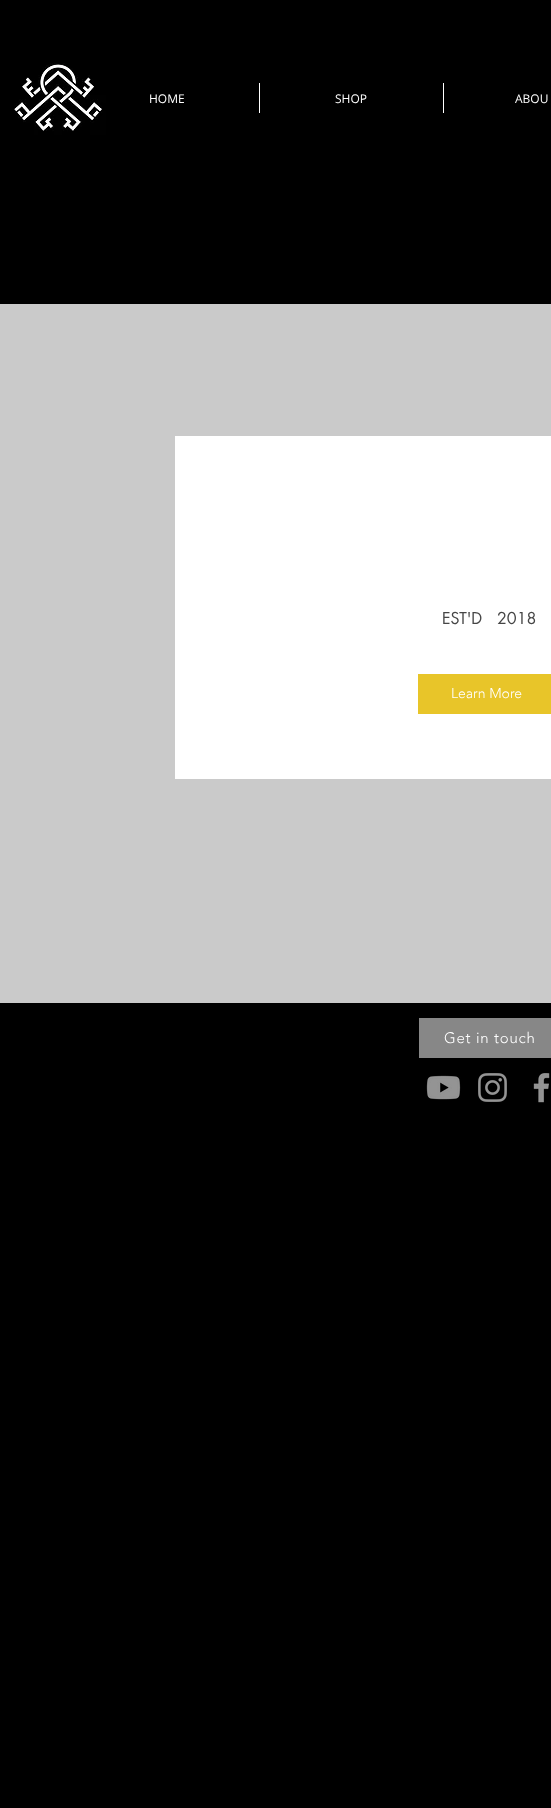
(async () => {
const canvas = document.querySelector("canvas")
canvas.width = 551
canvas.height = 1808
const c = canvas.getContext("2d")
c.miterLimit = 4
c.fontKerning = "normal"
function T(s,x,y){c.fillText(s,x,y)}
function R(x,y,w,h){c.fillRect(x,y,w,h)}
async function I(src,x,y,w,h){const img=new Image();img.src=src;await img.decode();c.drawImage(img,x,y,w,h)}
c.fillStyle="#000"
R(0,0,551,1808)
await I("1.png",10,55,100,85)
c.font="12px Open Sans"
c.fillStyle="#fff"
T("HOME",149,103)
R(259,83,1,30)
T("SHOP",335,103)
R(443,83,1,30)
T("ABOU",515,103)
c.fillStyle="#cacaca"
R(0,304,551,699)
c.fillStyle="#fff"
R(175,436,376,343)
c.font="16px futura"
c.fillStyle="#464646"
T("EST'D   2018",442,624)
c.fillStyle="#e8c529"
R(418,674,133,40)
c.font="300 14px 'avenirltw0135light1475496'"
c.fillStyle="#fff"
T("Learn More",451,698)
c.fillStyle="#878787"
R(419,1018,132,40)
c.letterSpacing="0.75px"
c.font="300 15px 'avenirltw0135light1475496'"
c.fillStyle="#fff"
T("Get in touch",444,1043)
await I("2.png",426,1075,35,25)
await I("3.png",478,1073,29,29)
await I("4.png",533,1073,17,30)
})()
